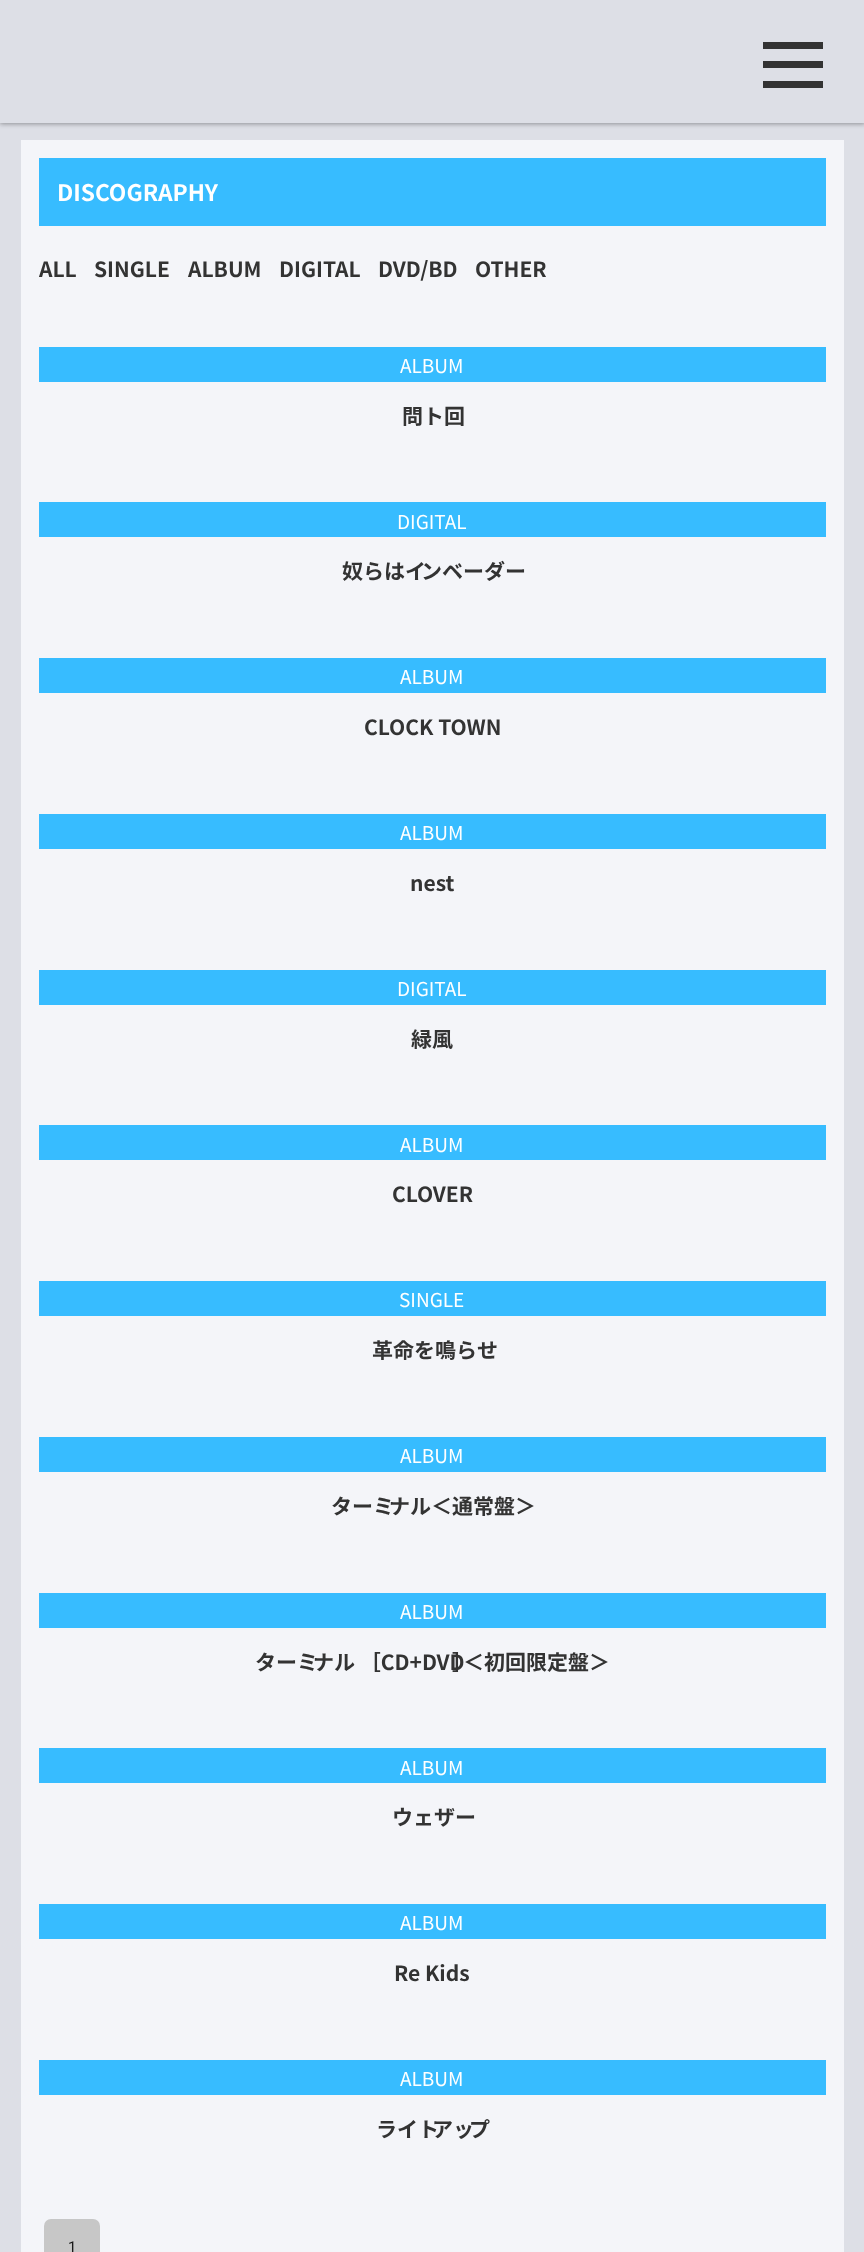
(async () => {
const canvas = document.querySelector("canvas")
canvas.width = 864
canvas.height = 2252
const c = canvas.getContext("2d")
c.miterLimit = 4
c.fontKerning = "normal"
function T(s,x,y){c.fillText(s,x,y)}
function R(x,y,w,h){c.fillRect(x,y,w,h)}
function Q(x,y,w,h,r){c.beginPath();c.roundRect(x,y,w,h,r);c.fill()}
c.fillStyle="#dddfe6"
R(0,0,864,2252)
c.fillStyle="#f4f5f9"
R(21,140,823,2112)
c.fillStyle="#0000003d"
c.filter="blur(2px)"
c.beginPath()
c.rect(0,2,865,122)
c.fill()
c.filter="none"
c.fillStyle="#0000001f"
c.filter="blur(2.5px)"
c.beginPath()
c.rect(0,2,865,122)
c.fill()
c.filter="none"
c.fillStyle="#dddfe6"
R(0,0,864,123)
c.fillStyle="#333"
R(763,42,60,7)
R(763,61,60,7)
R(763,81,60,7)
c.fillStyle="#37bcff"
R(39,158,787,68)
c.font="bold 22.75px Noto Sans JP"
c.fillStyle="#fff"
T("DISCOGRAPHY",57,201)
c.font="bold 21px Noto Sans JP"
c.fillStyle="#333"
T("ALL",39,277)
T("SINGLE",94,277)
T("ALBUM",188,277)
T("DIGITAL",279,277)
T("DVD/BD",378,277)
T("OTHER",475,277)
c.fillStyle="#37bcff"
R(39,347,787,35)
c.font="19px Noto Sans JP"
c.fillStyle="#fff"
T("ALBUM",400,373)
c.font="bold 21px Noto Sans JP"
c.fillStyle="#333"
T("問ト回",402,424)
c.fillStyle="#37bcff"
R(39,502,787,35)
c.font="19px Noto Sans JP"
c.fillStyle="#fff"
T("DIGITAL",397,529)
c.font="bold 21px Noto Sans JP"
c.fillStyle="#333"
T("奴らはイ",342,579)
T("ンベーダー",421,579)
c.fillStyle="#37bcff"
R(39,658,787,35)
c.font="19px Noto Sans JP"
c.fillStyle="#fff"
T("ALBUM",400,684)
c.font="bold 21px Noto Sans JP"
c.fillStyle="#333"
T("CLOCK TOWN",364,735)
c.fillStyle="#37bcff"
R(39,814,787,35)
c.font="19px Noto Sans JP"
c.fillStyle="#fff"
T("ALBUM",400,840)
c.font="bold 21px Noto Sans JP"
c.fillStyle="#333"
T("nest",410,891)
c.fillStyle="#37bcff"
R(39,970,787,35)
c.font="19px Noto Sans JP"
c.fillStyle="#fff"
T("DIGITAL",397,996)
c.font="bold 21px Noto Sans JP"
c.fillStyle="#333"
T("緑風",411,1047)
c.fillStyle="#37bcff"
R(39,1125,787,35)
c.font="19px Noto Sans JP"
c.fillStyle="#fff"
T("ALBUM",400,1152)
c.font="bold 21px Noto Sans JP"
c.fillStyle="#333"
T("CLOVER",392,1202)
c.fillStyle="#37bcff"
R(39,1281,787,35)
c.font="19px Noto Sans JP"
c.fillStyle="#fff"
T("SINGLE",399,1307)
c.font="bold 21px Noto Sans JP"
c.fillStyle="#333"
T("革命を鳴らせ",372,1358)
c.fillStyle="#37bcff"
R(39,1437,787,35)
c.font="19px Noto Sans JP"
c.fillStyle="#fff"
T("ALBUM",400,1463)
c.font="bold 21px Noto Sans JP"
c.fillStyle="#333"
T("ターミ",331,1514)
T("ナル＜通常盤＞",389,1514)
c.fillStyle="#37bcff"
R(39,1593,787,35)
c.font="19px Noto Sans JP"
c.fillStyle="#fff"
T("ALBUM",400,1619)
c.font="bold 21px Noto Sans JP"
c.fillStyle="#333"
T("ターミ",255,1670)
T("ナル ［CD+DVD",313,1670)
T("］",452,1670)
T("＜初回限定盤＞",463,1670)
c.fillStyle="#37bcff"
R(39,1748,787,35)
c.font="19px Noto Sans JP"
c.fillStyle="#fff"
T("ALBUM",400,1775)
c.font="bold 21px Noto Sans JP"
c.fillStyle="#333"
T("ウェザー",392,1825)
c.fillStyle="#37bcff"
R(39,1904,787,35)
c.font="19px Noto Sans JP"
c.fillStyle="#fff"
T("ALBUM",400,1930)
c.font="bold 21px Noto Sans JP"
c.fillStyle="#333"
T("Re Kids",394,1981)
c.fillStyle="#37bcff"
R(39,2060,787,35)
c.font="19px Noto Sans JP"
c.fillStyle="#fff"
T("ALBUM",400,2086)
c.font="bold 21px Noto Sans JP"
c.fillStyle="#333"
T("ライト",376,2137)
T("アッ",432,2137)
T("プ",469,2137)
c.fillStyle="#c7c7c7"
Q(44,2219,56,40,7)
c.font="15px Roboto"
c.fillStyle="#1a1a1a"
T("1",68,2252)
})()
